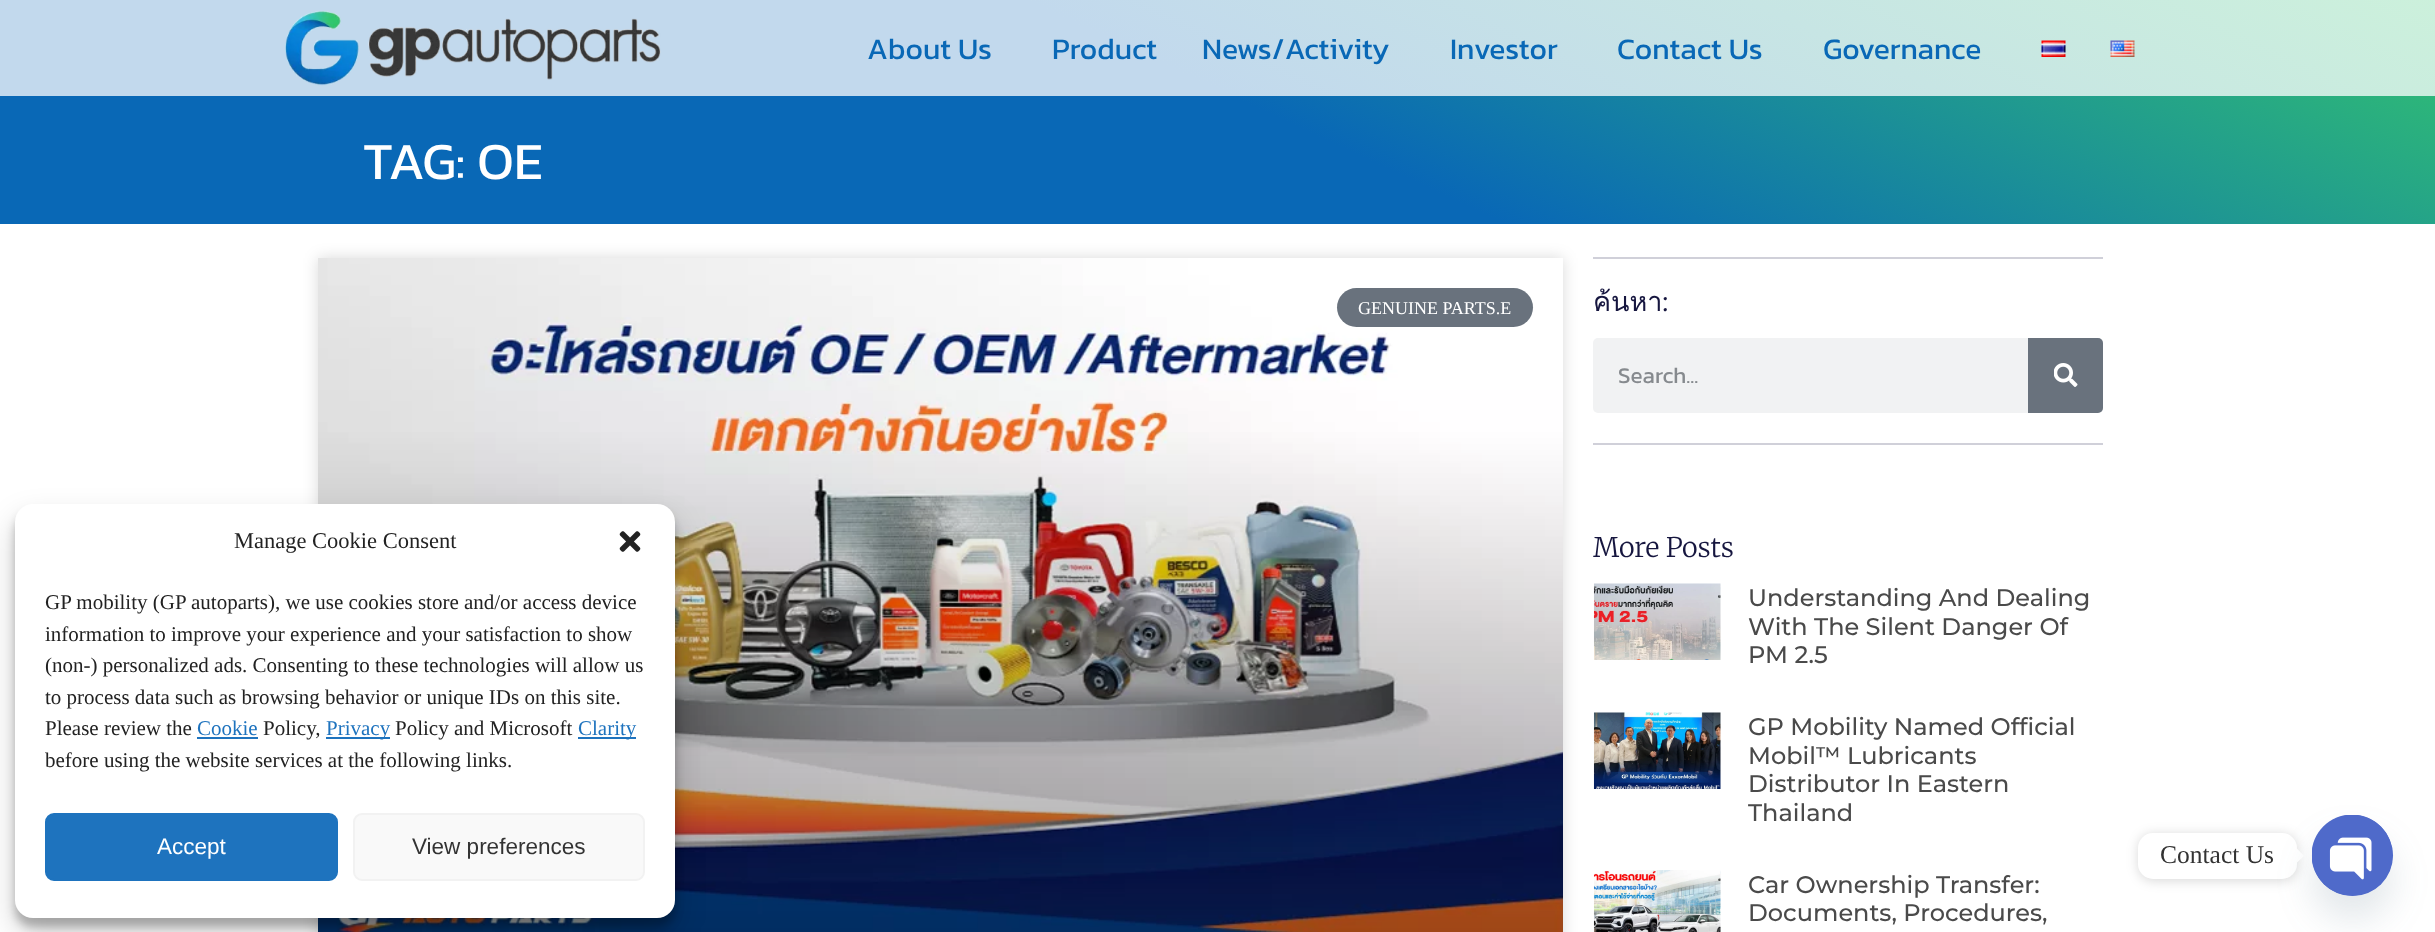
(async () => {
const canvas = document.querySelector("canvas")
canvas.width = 2435
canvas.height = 932
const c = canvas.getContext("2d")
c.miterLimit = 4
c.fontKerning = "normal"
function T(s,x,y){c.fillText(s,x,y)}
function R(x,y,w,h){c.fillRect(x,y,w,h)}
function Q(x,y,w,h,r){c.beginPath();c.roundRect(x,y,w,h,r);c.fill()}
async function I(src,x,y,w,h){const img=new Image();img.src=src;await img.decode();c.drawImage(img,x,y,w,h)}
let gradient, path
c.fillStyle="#fff"
R(0,0,2435,932)
c.fillStyle="#00000026"
c.filter="blur(7.5px)"
c.beginPath()
c.rect(318,258,1245,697)
c.fill()
c.filter="none"
await I("5.png",318,258,1245,674)
c.fillStyle="#0000003b"
c.filter="blur(4.5px)"
c.beginPath()
c.roundRect(15,513,660,414,18)
c.fill()
c.filter="none"
c.fillStyle="#00000030"
c.filter="blur(15px)"
c.beginPath()
c.roundRect(15,519,660,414,18)
c.fill()
c.filter="none"
c.fillStyle="#fff"
Q(15,504,660,414,18)
c.font="22.5px Liberation Serif"
c.fillStyle="#222"
T("Manage Cookie Consent",234,548)
await I("1.png",619,531,22,21)
c.font="21px Liberation Serif"
T("GP mobility (GP autoparts), we use cookies store and/or access device",45,609)
T("information to improve your experience and your satisfaction to show",45,641)
T("(non-) personalized ads. Consenting to these technologies will allow us",45,672)
T("to process data such as browsing behavior or unique IDs on this site.",45,704)
T("Please review the",45,735)
c.fillStyle="#1e73be"
T("Cookie",197,735)
R(197,737,61,2)
c.fillStyle="#222"
T("Policy,",263,735)
c.fillStyle="#1e73be"
R(326,737,64,2)
T("Privacy",326,735)
c.fillStyle="#222"
T("Policy and Microsoft",395,735)
c.fillStyle="#1e73be"
R(578,737,58,2)
T("Clarity",578,735)
c.fillStyle="#222"
T("before using the website services at the following links.",45,767)
c.fillStyle="#1e73be"
c.beginPath()
c.roundRect(46,814,291,66,8)
c.fill()
c.strokeStyle="#1e73be"
c.lineWidth=2
c.stroke()
c.font="22.5px Liberation Sans"
c.fillStyle="#fff"
T("Accept",157,854)
c.fillStyle="#f9f9f9"
c.beginPath()
c.roundRect(354,814,290,66,8)
c.fill()
c.strokeStyle="#f2f2f2"
c.stroke()
c.fillStyle="#333"
T("View preferences",412,854)
gradient = c.createLinearGradient(954,669,1482,-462)
gradient.addColorStop(.51,"#c2d9ed")
gradient.addColorStop(1,"#ccf1db")
c.fillStyle = gradient
R(0,0,2435,96)
await I("2.png",285,11,376,75)
c.font="30px Kanit"
c.fillStyle="#0968b6"
T("About Us",867,59)
T("Product",1052,59)
T("News/Activity",1202,59)
T("Investor",1450,59)
T("Contact Us",1617,59)
T("Governance",1823,59)
await I("3.png",2041,40,25,17)
await I("4.png",2110,40,25,17)
gradient = c.createLinearGradient(954,669,1482,-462)
gradient.addColorStop(.51,"#0968b6")
gradient.addColorStop(1,"#34c56e")
c.fillStyle = gradient
R(0,96,2435,128)
c.font="52.5px Kanit"
c.fillStyle="#fff"
T("TAG: OE",363,179)
c.fillStyle="#69727d"
Q(1337,288,196,39,19.5)
c.font="18px Liberation Serif"
c.fillStyle="#fff"
T("GENUINE PARTS.E",1358,314)
c.fillStyle="#d0d0d9"
R(1593,257,510,2)
R(1593,443,510,2)
c.font="27px Loma"
c.fillStyle="#16163f"
T("ค้นหา",1593,311)
c.font="300 27px Merriweather"
T(":",1662,311)
c.fillStyle="#f1f2f3"
Q(1593,338,510,75,5)
c.font="22.5px Kanit"
c.fillStyle="#868a8e"
T("Search...",1618,383)
c.fillStyle="#69727d"
c.beginPath()
c.roundRect(2028,338,75,75,[0,5,5,0])
c.fill()
await I("6.png",2054,363,24,24)
c.font="300 27px Merriweather"
c.fillStyle="#16163f"
T("More Posts",1593,557)
await I("7.png",1593,583,128,77)
c.font="500 24px Montserrat"
c.fillStyle="#4a4a4a"
T("Understanding And Dealing",1748,606)
T("With The Silent Danger Of",1748,635)
T("PM 2.5",1748,663)
await I("8.png",1593,712,128,77)
T("GP Mobility Named Official",1748,735)
T("Mobil™ Lubricants",1748,764)
T("Distributor In Eastern",1748,792)
T("Thailand",1748,821)
await I("9.png",1593,870,128,62)
T("Car Ownership Transfer:",1748,893)
T("Documents, Procedures,",1748,921)
c.fillStyle="#00000026"
c.filter="blur(6px)"
c.beginPath()
c.roundRect(2138,834,159,47,15)
c.fill()
c.filter="none"
c.fillStyle="#fff"
Q(2138,833,159,46,15)
c.font="25.5px Liberation Serif"
c.fillStyle="#333"
T("Contact Us",2160,863)
c.fillStyle="#fff"
path = new Path2D("M2296.5 863v-15l7.5 8z")
c.fill(path)
c.fillStyle="#49687e29"
c.filter="blur(18px)"
c.beginPath()
c.roundRect(2312,839,81,81,40.5)
c.fill()
c.filter="none"
c.fillStyle="#4f6aca"
c.beginPath()
c.arc(2352.5,855.5,40.5,0,7)
c.fill()
await I("10.png",2312,815,81,81)
})()
